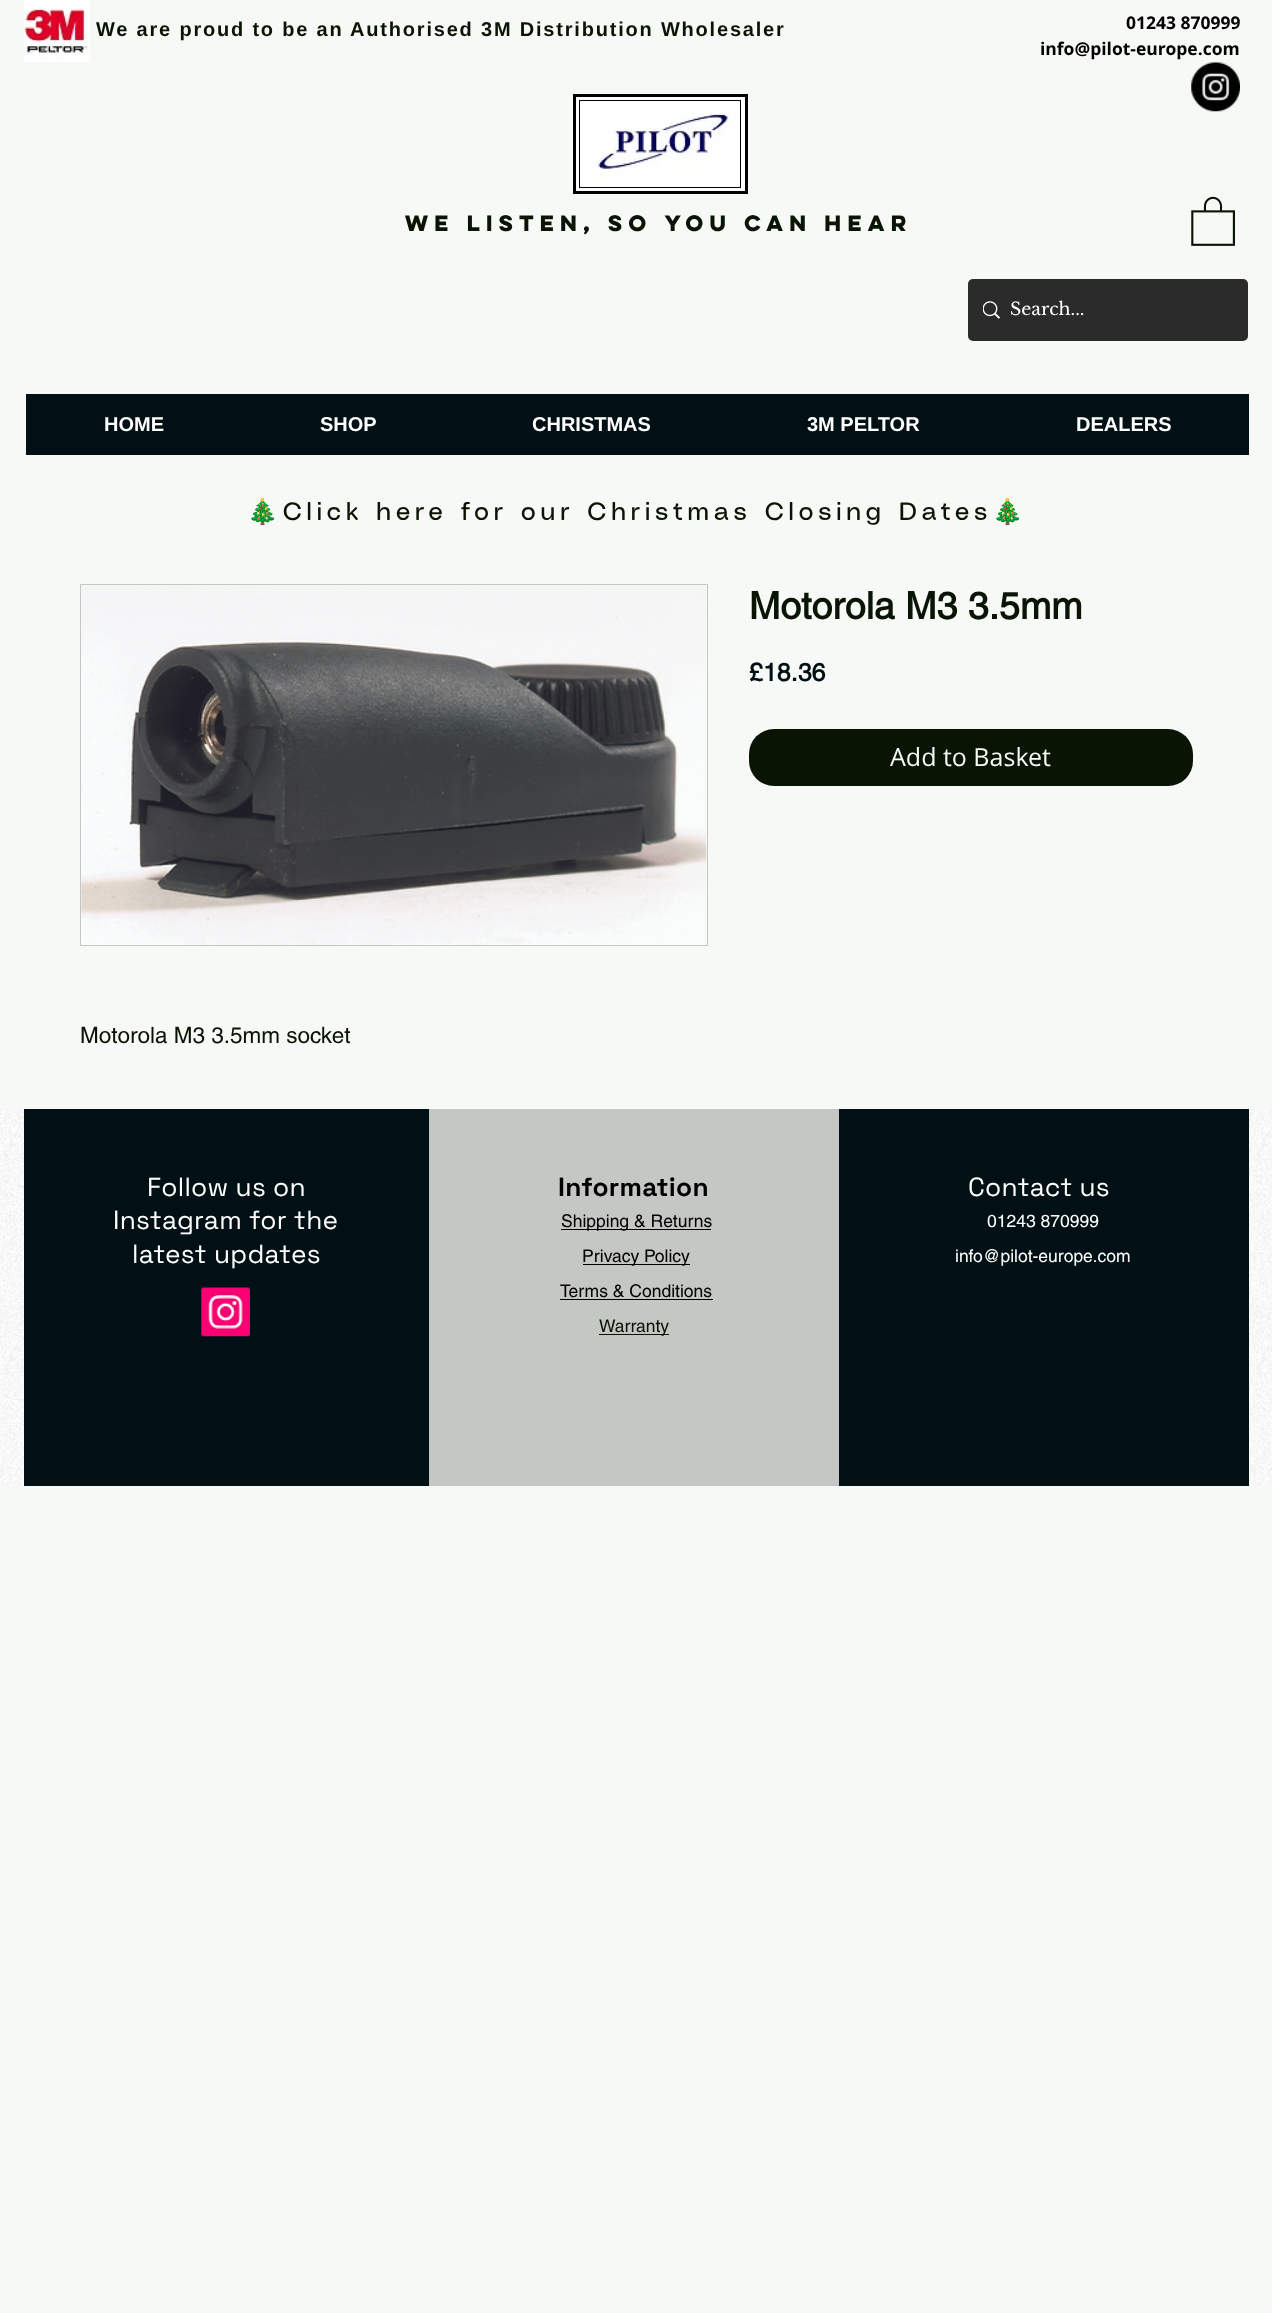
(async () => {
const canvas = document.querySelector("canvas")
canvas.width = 1272
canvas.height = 2313
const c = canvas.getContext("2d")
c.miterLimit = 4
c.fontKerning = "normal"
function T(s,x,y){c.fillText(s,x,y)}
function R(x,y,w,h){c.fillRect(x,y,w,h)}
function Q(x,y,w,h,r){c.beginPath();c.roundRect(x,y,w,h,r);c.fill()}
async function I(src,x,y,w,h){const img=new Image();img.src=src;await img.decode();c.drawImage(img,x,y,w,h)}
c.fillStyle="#f6f9f5"
R(0,0,1272,2313)
await I("1.png",24,0,66,62)
c.letterSpacing="1.8px"
c.font="bold 20px Liberation Sans"
c.fillStyle="#091405"
T("We are proud to be an Authorised 3M Distribution Wholesaler",96,36)
c.letterSpacing="0px"
c.font="bold 17.5px Open Sans"
c.fillStyle="#000"
T("01243 870999",1126,29)
T("info@pilot-europe.com",1040,55)
await I("2.png",1191,62,49,50)
c.fillStyle="#fff"
c.beginPath()
c.rect(574.5,95.5,172,97)
c.fill()
c.strokeStyle="#000"
c.lineWidth=3
c.stroke()
await I("3.png",596,112,135,66)
c.lineWidth=1
c.strokeRect(579.5,100.5,161,87)
c.letterSpacing="1.8px"
c.font="bold 20px 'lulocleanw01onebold'"
c.fillStyle="#091405"
T("We listen, so you can hear",405,231)
await I("4.png",1191,196,44,50)
c.fillStyle="#2b2b2b"
Q(968,279,280,62,5)
await I("5.png",983,301,17,18)
c.letterSpacing="0px"
c.font="17.5px Libre Baskerville"
c.fillStyle="#fff"
T("Search...",1010,315)
c.fillStyle="#011014"
R(26,394,1223,61)
c.font="bold 20px Liberation Sans"
c.fillStyle="#fff"
T("HOME",104,431)
T("SHOP",320,431)
T("CHRISTMAS",532,431)
T("3M PELTOR",807,431)
T("DEALERS",1076,431)
c.letterSpacing="5px"
c.font="25px Noto Color Emoji"
c.fillStyle="#091405"
T("🎄",247,520)
c.font="25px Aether"
T("Click here for our Christmas Closing Dates",283,520)
c.font="25px Noto Color Emoji"
T("🎄",992,520)
c.letterSpacing="0px"
c.font="bold 37.5px helvetica"
T("Motorola M3 3.5mm",749,619)
c.font="bold 25px helvetica"
c.fillStyle="#011014"
T("£18.36",749,681)
c.fillStyle="#091405"
Q(749,729,444,57,25)
c.font="25px Open Sans"
c.fillStyle="#f6f9f5"
T("Add to Basket",890,766)
c.strokeStyle="#c5c7c4"
c.strokeRect(80.5,584.5,627,361)
await I("6.png",81,585,626,360)
c.font="22.5px helvetica"
c.fillStyle="#091405"
T("Motorola M3 3.5mm socket",80,1043)
c.fillStyle="#fff"
R(0,1109,1272,377)
await I("7.png",0,1109,1272,377)
c.fillStyle="#011014"
R(24,1109,405,377)
c.letterSpacing="0.25px"
c.font="26.25px Space Grotesk"
c.fillStyle="#fff"
T("Follow us on",147,1196)
T("Instagram for the",113,1229)
T("latest updates",132,1263)
await I("8.png",201,1287,49,50)
c.fillStyle="#c5c7c4"
R(429,1109,410,377)
c.font="bold 26.25px Space Grotesk"
c.fillStyle="#000"
T("Information",558,1196)
R(561,1229,150,1)
c.letterSpacing="0px"
c.font="17.5px helvetica"
T("Shipping & Returns",561,1227)
R(583,1264,107,1)
T("Privacy Policy",582,1262)
T("Terms & Conditions",560,1297)
R(560,1299,153,1)
c.fillStyle="#091405"
R(599,1334,70,1)
T("Warranty",599,1332)
c.fillStyle="#011014"
R(839,1109,410,377)
c.letterSpacing="0.25px"
c.font="26.25px Space Grotesk"
c.fillStyle="#fff"
T("Contact us",968,1196)
c.letterSpacing="0px"
c.font="17.5px helvetica"
T("01243 870999",987,1227)
T("info@pilot-europe.com",955,1262)
})()
